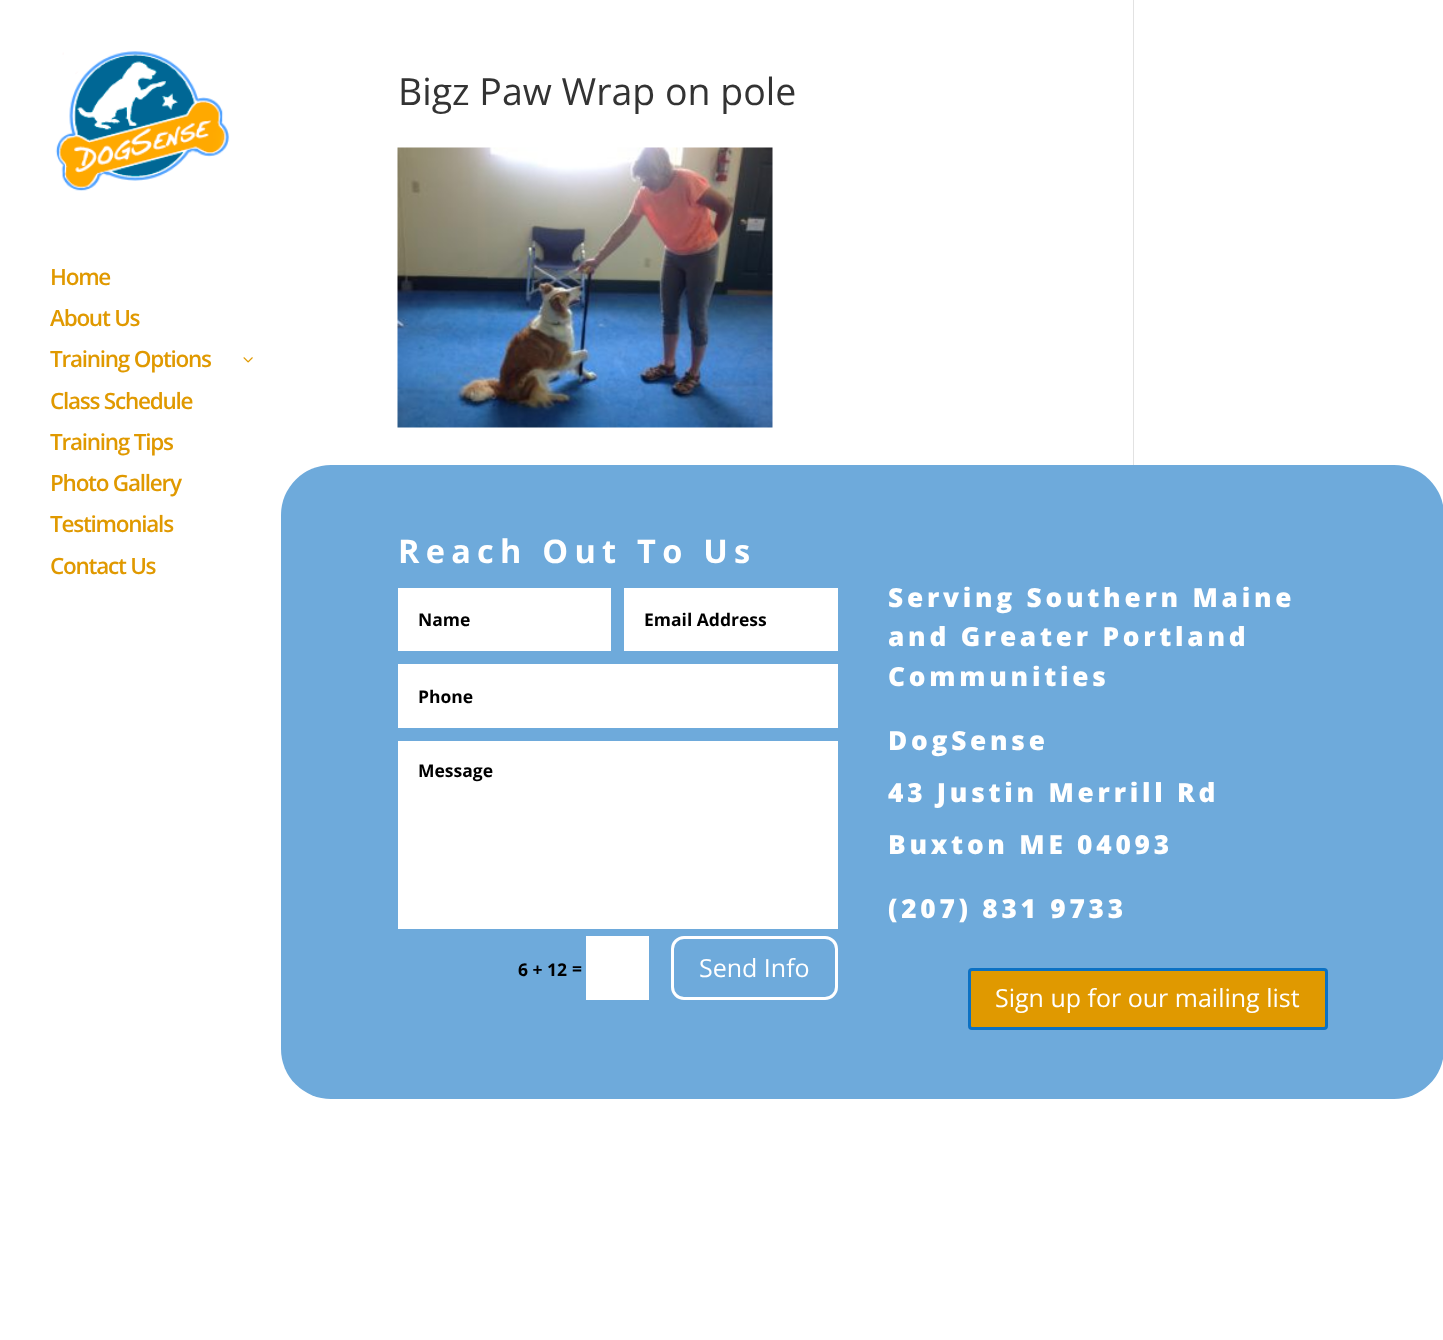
(async () => {
const canvas = document.querySelector("canvas")
canvas.width = 1443
canvas.height = 1340
const c = canvas.getContext("2d")
c.miterLimit = 4
c.fontKerning = "normal"
function T(s,x,y){c.fillText(s,x,y)}
function R(x,y,w,h){c.fillRect(x,y,w,h)}
function Q(x,y,w,h,r){c.beginPath();c.roundRect(x,y,w,h,r);c.fill()}
async function I(src,x,y,w,h){const img=new Image();img.src=src;await img.decode();c.drawImage(img,x,y,w,h)}
c.fillStyle="#fff"
R(0,0,1443,1340)
await I("1.png",55,51,175,140)
c.letterSpacing="-1.25px"
c.font="600 22.5px Open Sans"
c.fillStyle="#e09900"
T("Home",50,285)
T("About Us",50,326)
T("Training Options",50,367)
await I("2.png",243,357,10,6)
T("Class Schedule",50,409)
T("Training Tips",50,450)
T("Photo Gallery",50,491)
T("Testimonials",50,532)
T("Contact Us",50,574)
c.letterSpacing="0px"
c.font="37.5px Open Sans"
c.fillStyle="#333"
T("Bigz Paw Wrap on pole",398,105)
await I("3.png",397,147,376,281)
c.fillStyle="#e2e2e2"
R(1133,0,1,465)
c.fillStyle="#6eaadb"
Q(281,465,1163,634,50)
c.letterSpacing="6.25px"
c.font="bold 32.5px Open Sans"
c.fillStyle="#fff"
T("Reach Out To Us",398,563)
R(398,588,213,63)
c.letterSpacing="0px"
c.font="bold 17.5px Open Sans"
c.fillStyle="#000"
T("Name",418,626)
c.fillStyle="#fff"
R(624,588,214,63)
c.fillStyle="#000"
T("Email Address",644,626)
c.fillStyle="#fff"
R(398,664,440,64)
c.fillStyle="#000"
T("Phone",418,703)
c.fillStyle="#fff"
R(398,741,440,188)
c.fillStyle="#000"
T("Message",418,777)
T("6 + 12",518,976)
T("=",572,975)
c.fillStyle="#fff"
R(586,936,63,64)
c.beginPath()
c.roundRect(672.5,937.5,164,61,11.5)
c.strokeStyle="#fff"
c.lineWidth=3
c.stroke()
c.font="25px Open Sans"
T("Send Info",699,977)
c.letterSpacing="3.75px"
c.font="800 26.25px Open Sans"
T("Serving Southern Maine",888,607)
T("and Greater Portland",888,646)
T("Communities",888,686)
T("DogSense",888,750)
T("43 Justin Merrill Rd",888,802)
T("Buxton ME 04093",888,854)
T("(207) 831 9733",888,918)
c.fillStyle="#e09900"
c.beginPath()
c.roundRect(969.5,969.5,357,59,2.5)
c.fill()
c.strokeStyle="#0c71c3"
c.stroke()
c.letterSpacing="0px"
c.font="25px Open Sans"
c.fillStyle="#fff"
T("Sign up for our mailing list",995,1007)
})()
